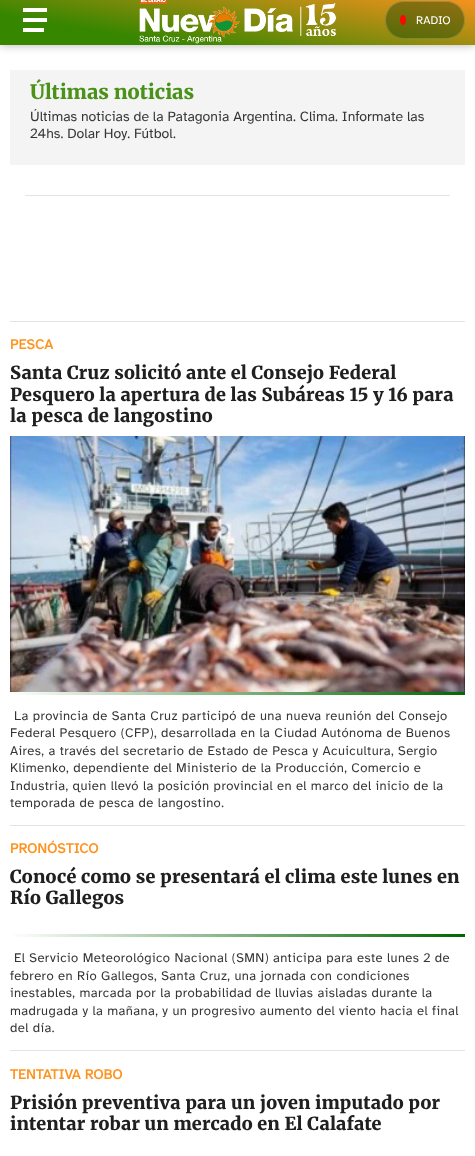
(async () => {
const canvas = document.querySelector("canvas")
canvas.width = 475
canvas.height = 1156
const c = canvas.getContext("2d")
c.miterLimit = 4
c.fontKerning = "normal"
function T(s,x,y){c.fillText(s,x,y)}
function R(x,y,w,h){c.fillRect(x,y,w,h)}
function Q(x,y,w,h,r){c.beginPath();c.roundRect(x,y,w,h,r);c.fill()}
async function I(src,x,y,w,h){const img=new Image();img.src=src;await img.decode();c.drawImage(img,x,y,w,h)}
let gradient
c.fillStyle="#fff"
R(0,0,475,1156)
c.fillStyle="#0000004d"
c.filter="blur(5px)"
c.beginPath()
c.rect(0,-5,475,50)
c.fill()
c.filter="none"
gradient = c.createLinearGradient(249,-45,226,85)
gradient.addColorStop(0,"#ff931f")
gradient.addColorStop(.77,"#368600")
c.fillStyle = gradient
R(0,0,475,45)
await I("1.png",23,8,24,24)
await I("2.png",139,0,198,44)
c.fillStyle="#023c0266"
Q(385,1,80,38,19)
c.beginPath()
c.roundRect(385.5,1.5,79,37,18.5)
c.strokeStyle="#ffffff33"
c.stroke()
c.fillStyle="#fb0800"
c.beginPath()
c.ellipse(403,20,3,5,0,0,7)
c.fill()
c.font="11.5px Atkinson Hyperlegible"
c.fillStyle="#fff"
T("RADIO",416,24)
c.fillStyle="#f4f4f4"
R(10,70,455,95)
c.font="900 20px Merriweather"
c.fillStyle="#4a921a"
T("Últimas noticias",30,99)
c.font="14px Atkinson Hyperlegible"
c.fillStyle="#363636"
T("Últimas noticias de la Patagonia Argentina. Clima. Informate las",30,121)
T("24hs. Dolar Hoy. Fútbol.",30,138)
c.fillStyle="#e8e3e3"
R(25,195,425,1)
R(10,321,455,1)
c.letterSpacing="0.1px"
c.font="bold 14px Atkinson Hyperlegible"
c.fillStyle="#ff931f"
T("PESCA",10,349)
c.letterSpacing="0.2px"
c.font="900 18px Merriweather"
c.fillStyle="#202020"
T("Santa Cruz solicitó ante el Consejo Federal",10,379)
T("Pesquero la apertura de las Subáreas 15 y 16 para",10,401)
T("la pesca de langostino",10,422)
await I("3.png",10,436,455,256)
gradient = c.createLinearGradient(103,806,372,581)
gradient.addColorStop(0,"#fff")
gradient.addColorStop(1,"#026602")
c.fillStyle = gradient
R(10,692,455,3)
c.letterSpacing="0.4px"
c.font="13px Atkinson Hyperlegible"
c.fillStyle="#363636"
T("La provincia de Santa Cruz participó de una nueva reunión del Consejo",14,720)
T("Federal Pesquero (CFP), desarrollada en la Ciudad Autónoma de Buenos",10,737)
T("Aires, a través del secretario de Estado de Pesca y Acuicultura, Sergio",10,755)
T("Klimenko, dependiente del Ministerio de la Producción, Comercio e",10,772)
T("Industria, quien llevó la posición provincial en el marco del inicio de la",10,790)
T("temporada de pesca de langostino.",10,807)
c.fillStyle="#e8e3e3"
R(10,825,455,1)
c.letterSpacing="0.1px"
c.font="bold 14px Atkinson Hyperlegible"
c.fillStyle="#ff931f"
T("PRONÓSTICO",10,853)
c.letterSpacing="0.2px"
c.font="900 18px Merriweather"
c.fillStyle="#202020"
T("Conocé como se presentará el clima este lunes en",10,883)
T("Río Gallegos",10,904)
gradient = c.createLinearGradient(103,1048,372,823)
gradient.addColorStop(0,"#fff")
gradient.addColorStop(1,"#026602")
c.fillStyle = gradient
R(10,934,455,3)
c.letterSpacing="0.4px"
c.font="13px Atkinson Hyperlegible"
c.fillStyle="#363636"
T("El Servicio Meteorológico Nacional (SMN) anticipa para este lunes 2 de",14,962)
T("febrero en Río Gallegos, Santa Cruz, una jornada con condiciones",10,980)
T("inestables, marcada por la probabilidad de lluvias aisladas durante la",10,997)
T("madrugada y la mañana, y un progresivo aumento del viento hacia el final",10,1015)
T("del día.",10,1032)
c.fillStyle="#e8e3e3"
R(10,1050,455,1)
c.letterSpacing="0.1px"
c.font="bold 14px Atkinson Hyperlegible"
c.fillStyle="#ff931f"
T("TENTATIVA ROBO",10,1079)
c.letterSpacing="0.2px"
c.font="900 18px Merriweather"
c.fillStyle="#202020"
T("Prisión preventiva para un joven imputado por",10,1109)
T("intentar robar un mercado en El Calafate",10,1130)
})()
